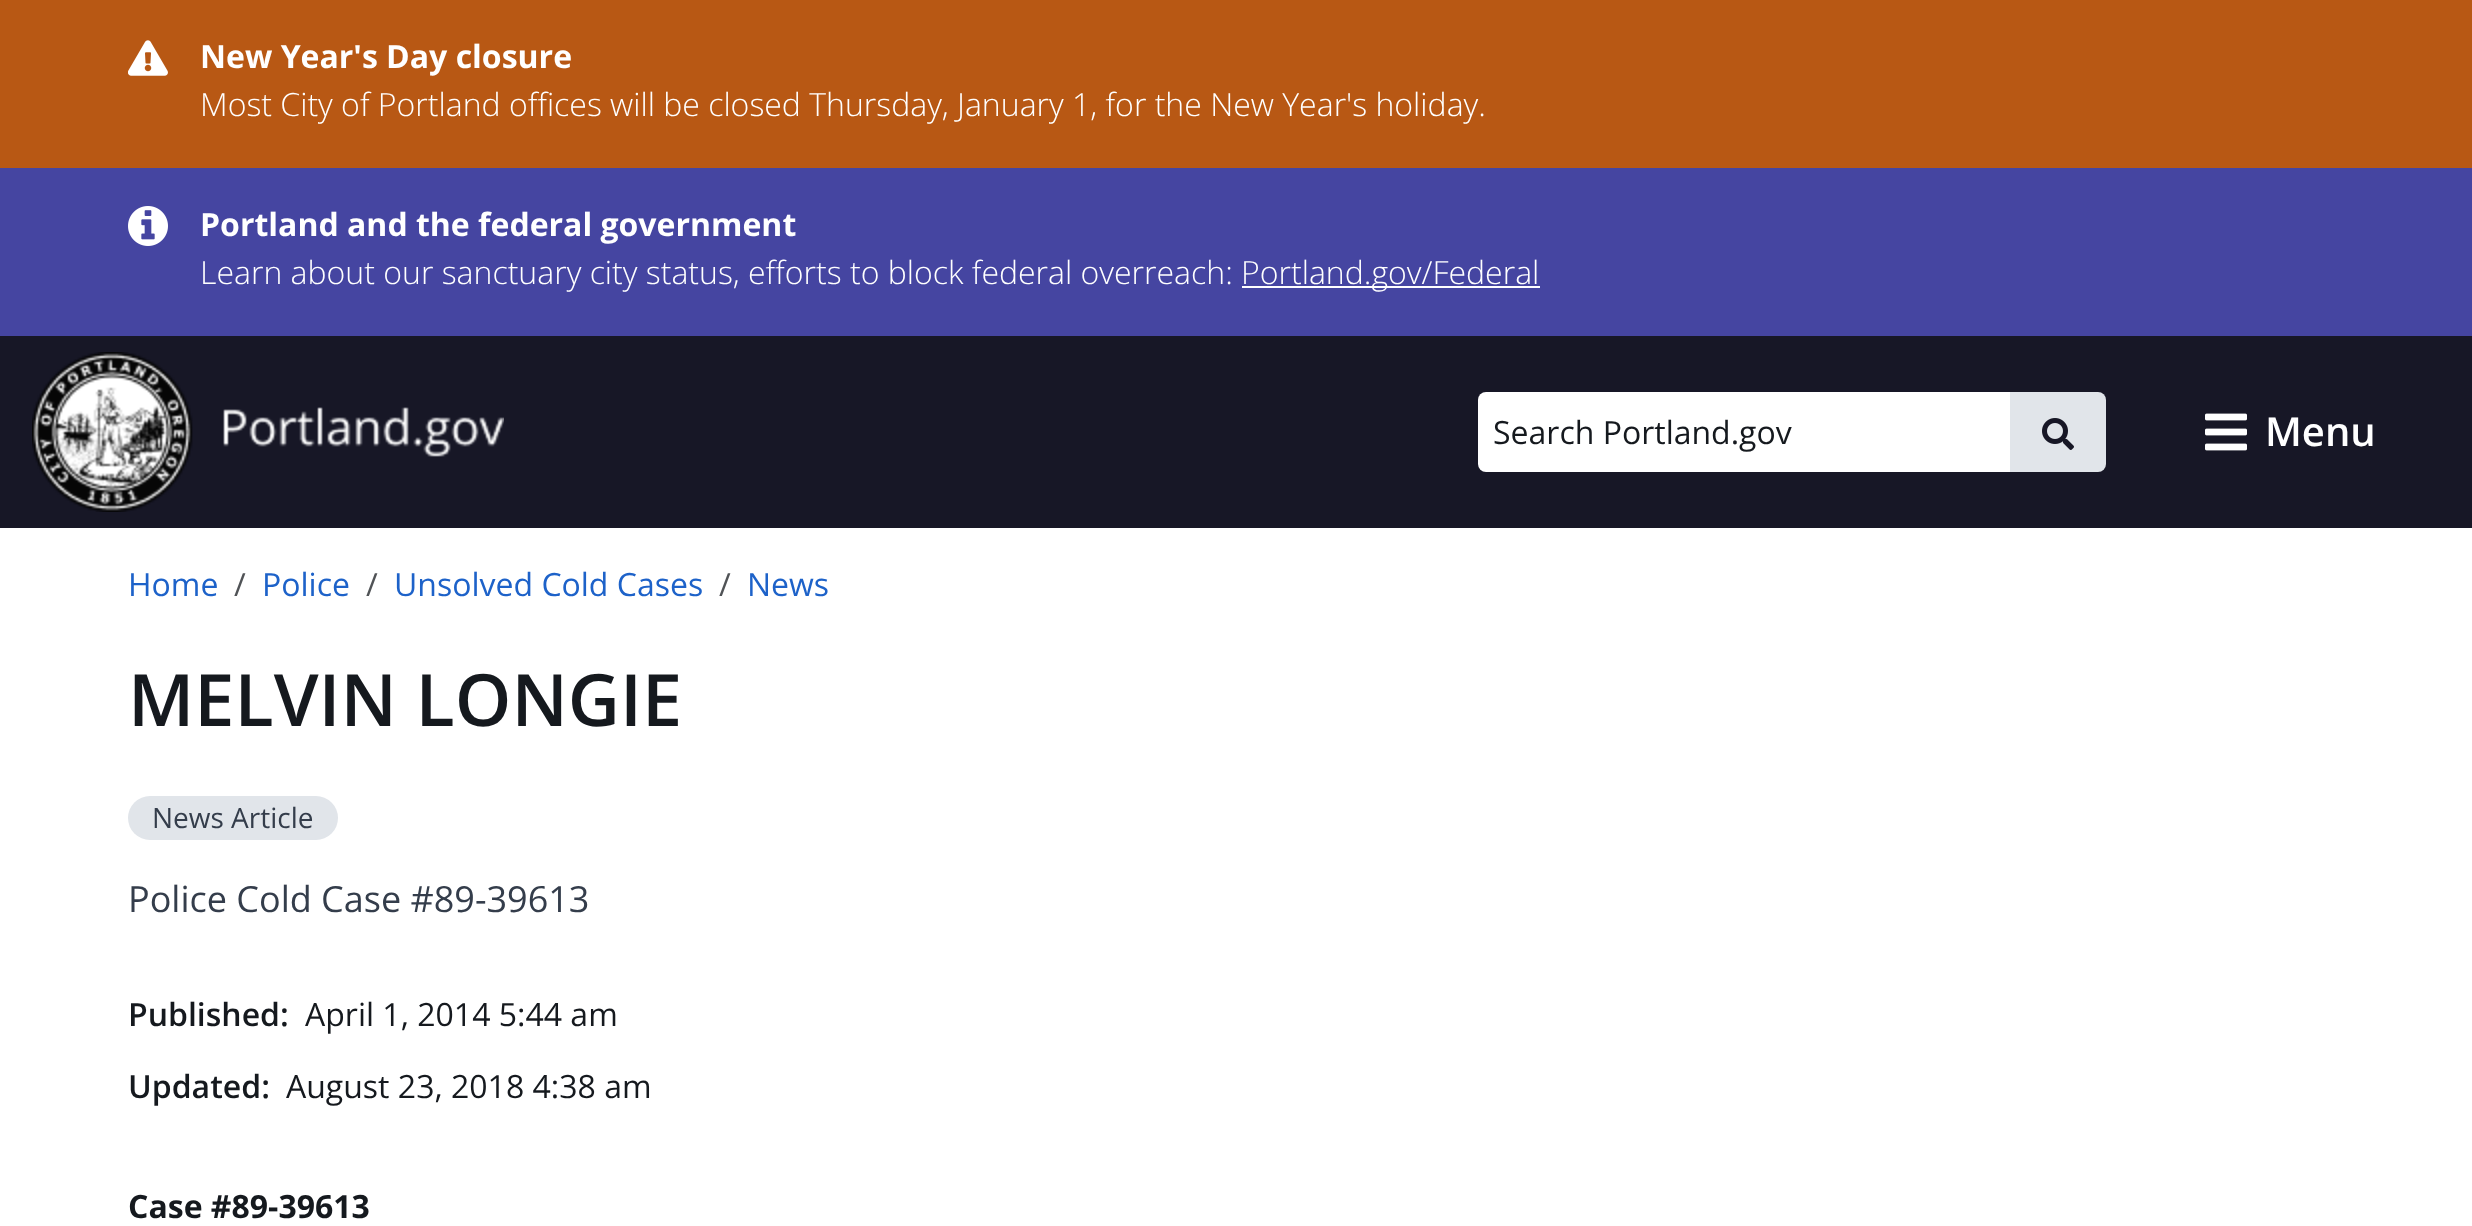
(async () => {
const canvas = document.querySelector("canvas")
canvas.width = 2472
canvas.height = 1226
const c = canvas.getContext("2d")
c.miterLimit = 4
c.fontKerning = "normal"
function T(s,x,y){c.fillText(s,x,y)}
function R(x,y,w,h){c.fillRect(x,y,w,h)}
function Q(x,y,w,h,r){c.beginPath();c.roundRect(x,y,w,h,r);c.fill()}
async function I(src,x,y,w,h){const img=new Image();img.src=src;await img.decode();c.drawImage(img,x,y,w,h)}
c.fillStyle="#fff"
R(0,0,2472,1226)
c.fillStyle="#b85814"
R(0,0,2472,168)
await I("1.png",128,40,40,36)
c.font="bold 32px Open Sans"
c.fillStyle="#fff"
T("New Year's Day closure",200,68)
c.font="300 32px Open Sans"
T("Most City of Portland offices will be closed Thursday, January 1, for the New Year's holiday.",200,116)
c.fillStyle="#4545a1"
R(0,168,2472,168)
await I("2.png",128,206,40,40)
c.font="bold 32px Open Sans"
c.fillStyle="#fff"
T("Portland and the federal government",200,236)
c.font="300 32px Open Sans"
T("Learn about our sanctuary city status, efforts to block federal overreach:",200,284)
R(1242,286,298,2)
T("Portland.gov/Federal",1241,284)
c.fillStyle="#171726"
R(0,336,2472,192)
await I("3.png",32,352,472,160)
c.fillStyle="#fff"
c.beginPath()
c.roundRect(1478,392,532,80,[8,0,0,8])
c.fill()
c.font="32px Open Sans"
c.fillStyle="#15191e"
T("Search Portland.gov",1493,444)
c.fillStyle="#e1e5ea"
c.beginPath()
c.roundRect(2010,392,96,80,[0,8,8,0])
c.fill()
await I("4.png",2042,418,32,32)
await I("5.png",2205,413,42,38)
c.font="600 40px Open Sans"
c.fillStyle="#fff"
T("Menu",2265,446)
c.font="32px Open Sans"
c.fillStyle="#1d62c9"
T("Home",128,596)
c.fillStyle="#505356"
T("/",234,596)
c.fillStyle="#1d62c9"
T("Police",262,596)
c.fillStyle="#505356"
T("/",366,596)
c.fillStyle="#1d62c9"
T("Unsolved Cold Cases",394,596)
c.fillStyle="#505356"
T("/",719,596)
c.fillStyle="#1d62c9"
T("News",747,596)
c.font="600 72px Open Sans"
c.fillStyle="#15191e"
T("MELVIN LONGIE",128,726)
c.fillStyle="#e1e5ea"
Q(128,796,210,44,22)
c.font="28px Open Sans"
c.fillStyle="#343d4b"
T("News Article",152,828)
c.font="36px Open Sans"
T("Police Cold Case #89-39613",128,912)
c.font="600 32px Open Sans"
c.fillStyle="#15191e"
T("Published:",128,1026)
c.font="32px Open Sans"
T("April 1, 2014 5:44 am",305,1026)
c.font="600 32px Open Sans"
T("Updated:",128,1098)
c.font="32px Open Sans"
T("August 23, 2018 4:38 am",286,1098)
c.font="bold 32px Open Sans"
T("Case #89-39613",128,1218)
})()
